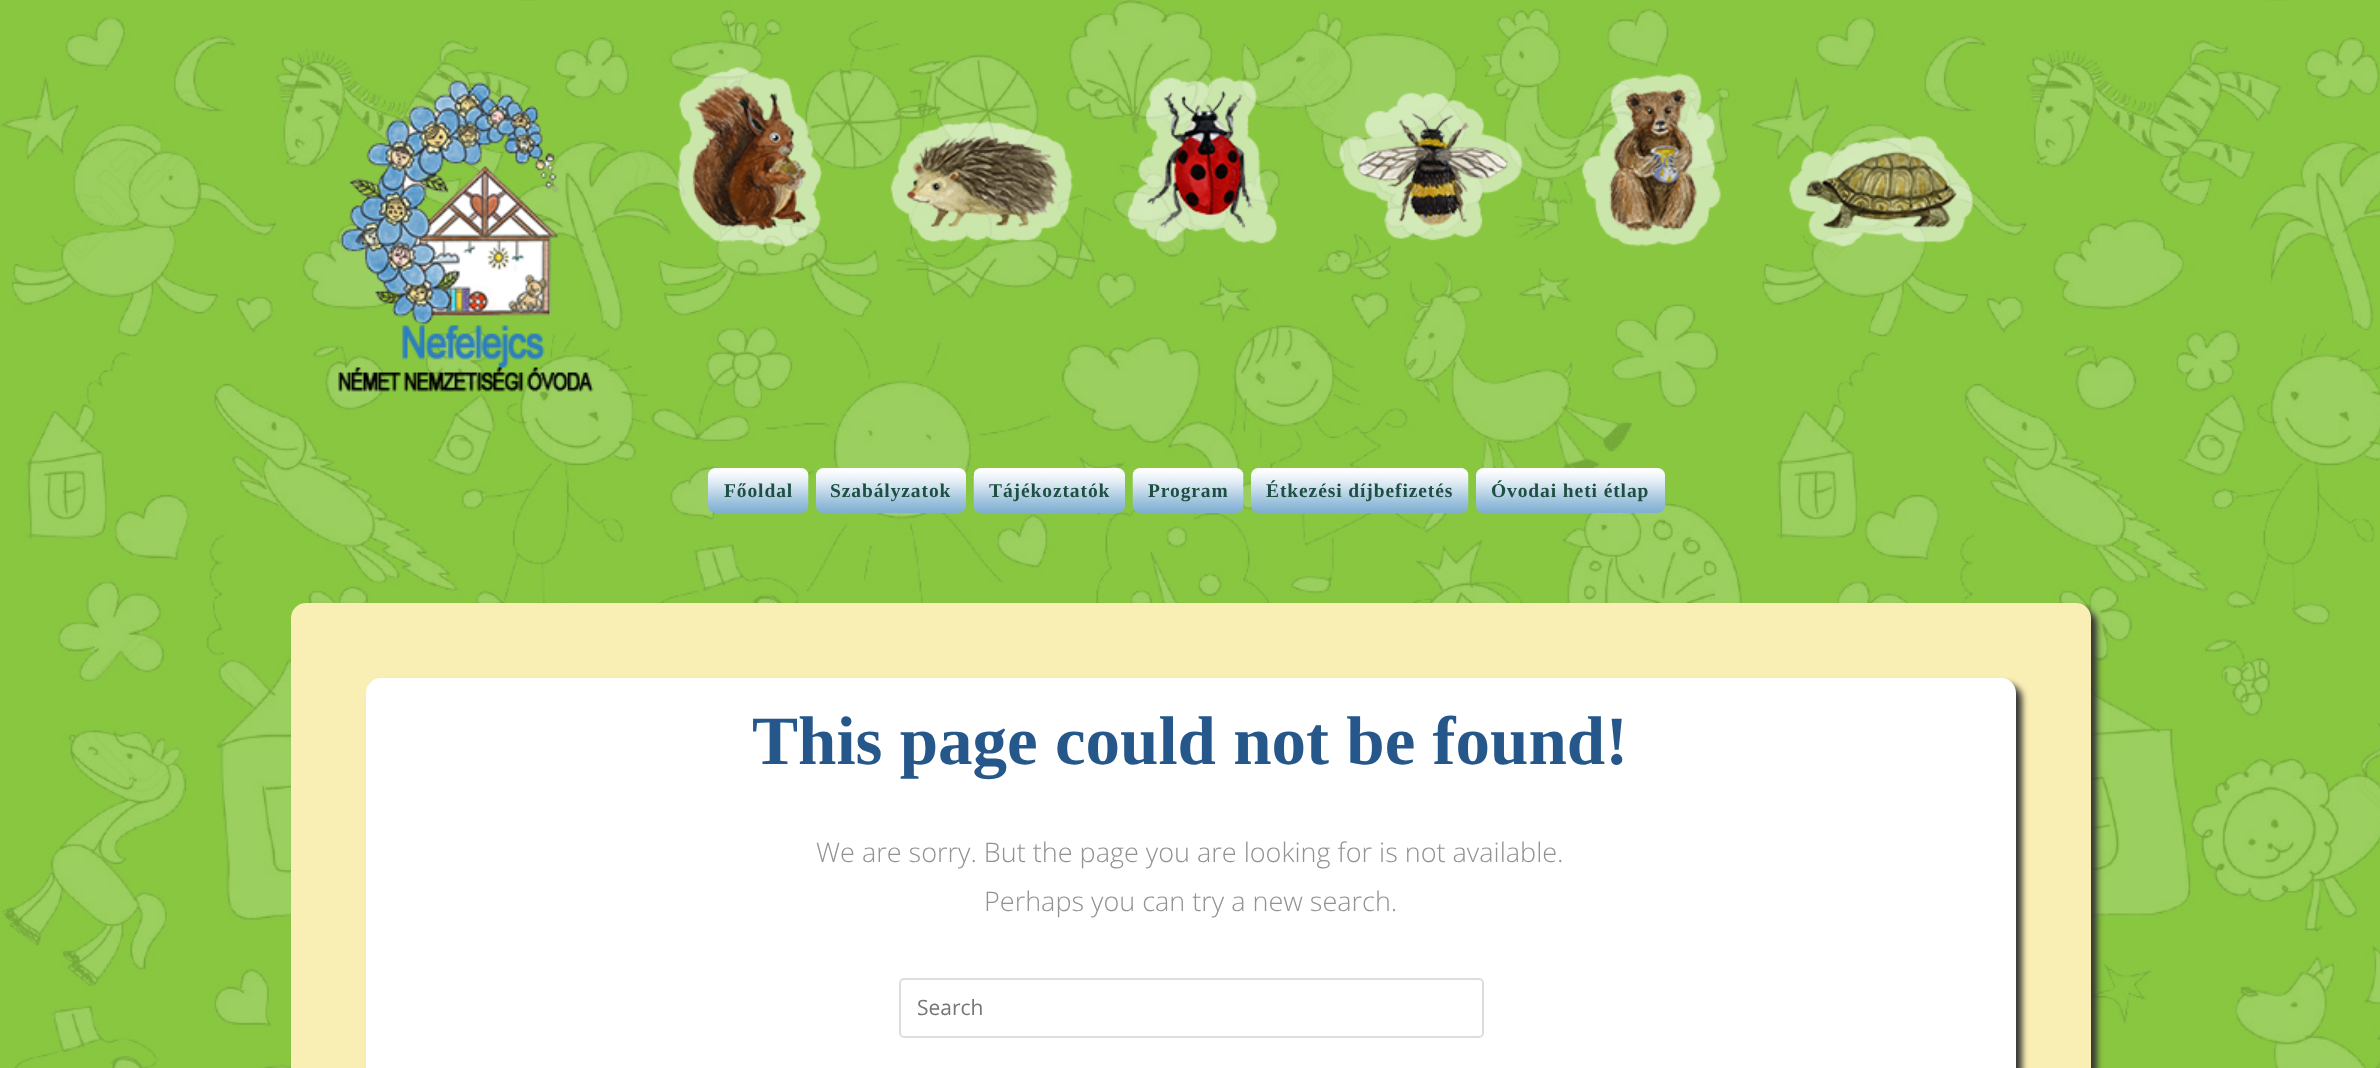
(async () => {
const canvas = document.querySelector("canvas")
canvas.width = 2380
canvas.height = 1068
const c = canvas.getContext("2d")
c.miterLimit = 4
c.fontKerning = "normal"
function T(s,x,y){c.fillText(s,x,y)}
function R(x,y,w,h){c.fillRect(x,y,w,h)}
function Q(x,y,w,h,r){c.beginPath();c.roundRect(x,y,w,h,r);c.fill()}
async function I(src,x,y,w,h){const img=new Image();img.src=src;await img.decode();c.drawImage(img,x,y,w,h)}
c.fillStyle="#fff"
R(0,0,2380,1068)
await I("1.png",0,0,2380,1068)
await I("2.png",338,79,256,313)
await I("3.png",677,67,146,180)
await I("4.png",890,121,183,121)
await I("5.png",1127,76,150,168)
await I("6.png",1339,92,184,149)
await I("7.png",1582,73,139,174)
await I("8.png",1789,136,184,111)
await I("9.png",708,468,101,45)
c.letterSpacing="0.9px"
c.font="bold 19.5px Liberation Serif"
c.fillStyle="#1e4f43"
T("Főoldal",724,497)
await I("10.png",816,468,150,45)
T("Szabályzatok",830,497)
await I("11.png",973,468,152,45)
T("Tájékoztatók",989,497)
await I("12.png",1132,468,112,45)
T("Program",1148,497)
await I("13.png",1251,468,218,45)
T("Étkezési díjbefizetés",1266,497)
await I("14.png",1476,468,189,45)
T("Óvodai heti étlap",1491,497)
c.fillStyle="#343434"
c.filter="blur(3px)"
c.beginPath()
c.roundRect(297,609,1800,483,15)
c.fill()
c.filter="none"
c.fillStyle="#f9efb4"
Q(291,603,1800,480,15)
c.fillStyle="#343434"
c.filter="blur(3px)"
c.beginPath()
c.roundRect(372,684,1650,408,15)
c.fill()
c.filter="none"
c.fillStyle="#fff"
Q(366,678,1650,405,15)
c.letterSpacing="0px"
c.font="bold 69px Liberation Serif"
c.fillStyle="#25578a"
T("This page could not be found!",752,764)
c.font="300 27px Open Sans"
c.fillStyle="#929292"
T("We are sorry. But the page you are looking for is not available.",816,862)
T("Perhaps you can try a new search.",984,911)
c.beginPath()
c.roundRect(900,979,583,58,4)
c.strokeStyle="#ddd"
c.lineWidth=2
c.stroke()
c.font="21px Open Sans"
c.fillStyle="#757575"
T("Search",917,1015)
})()
